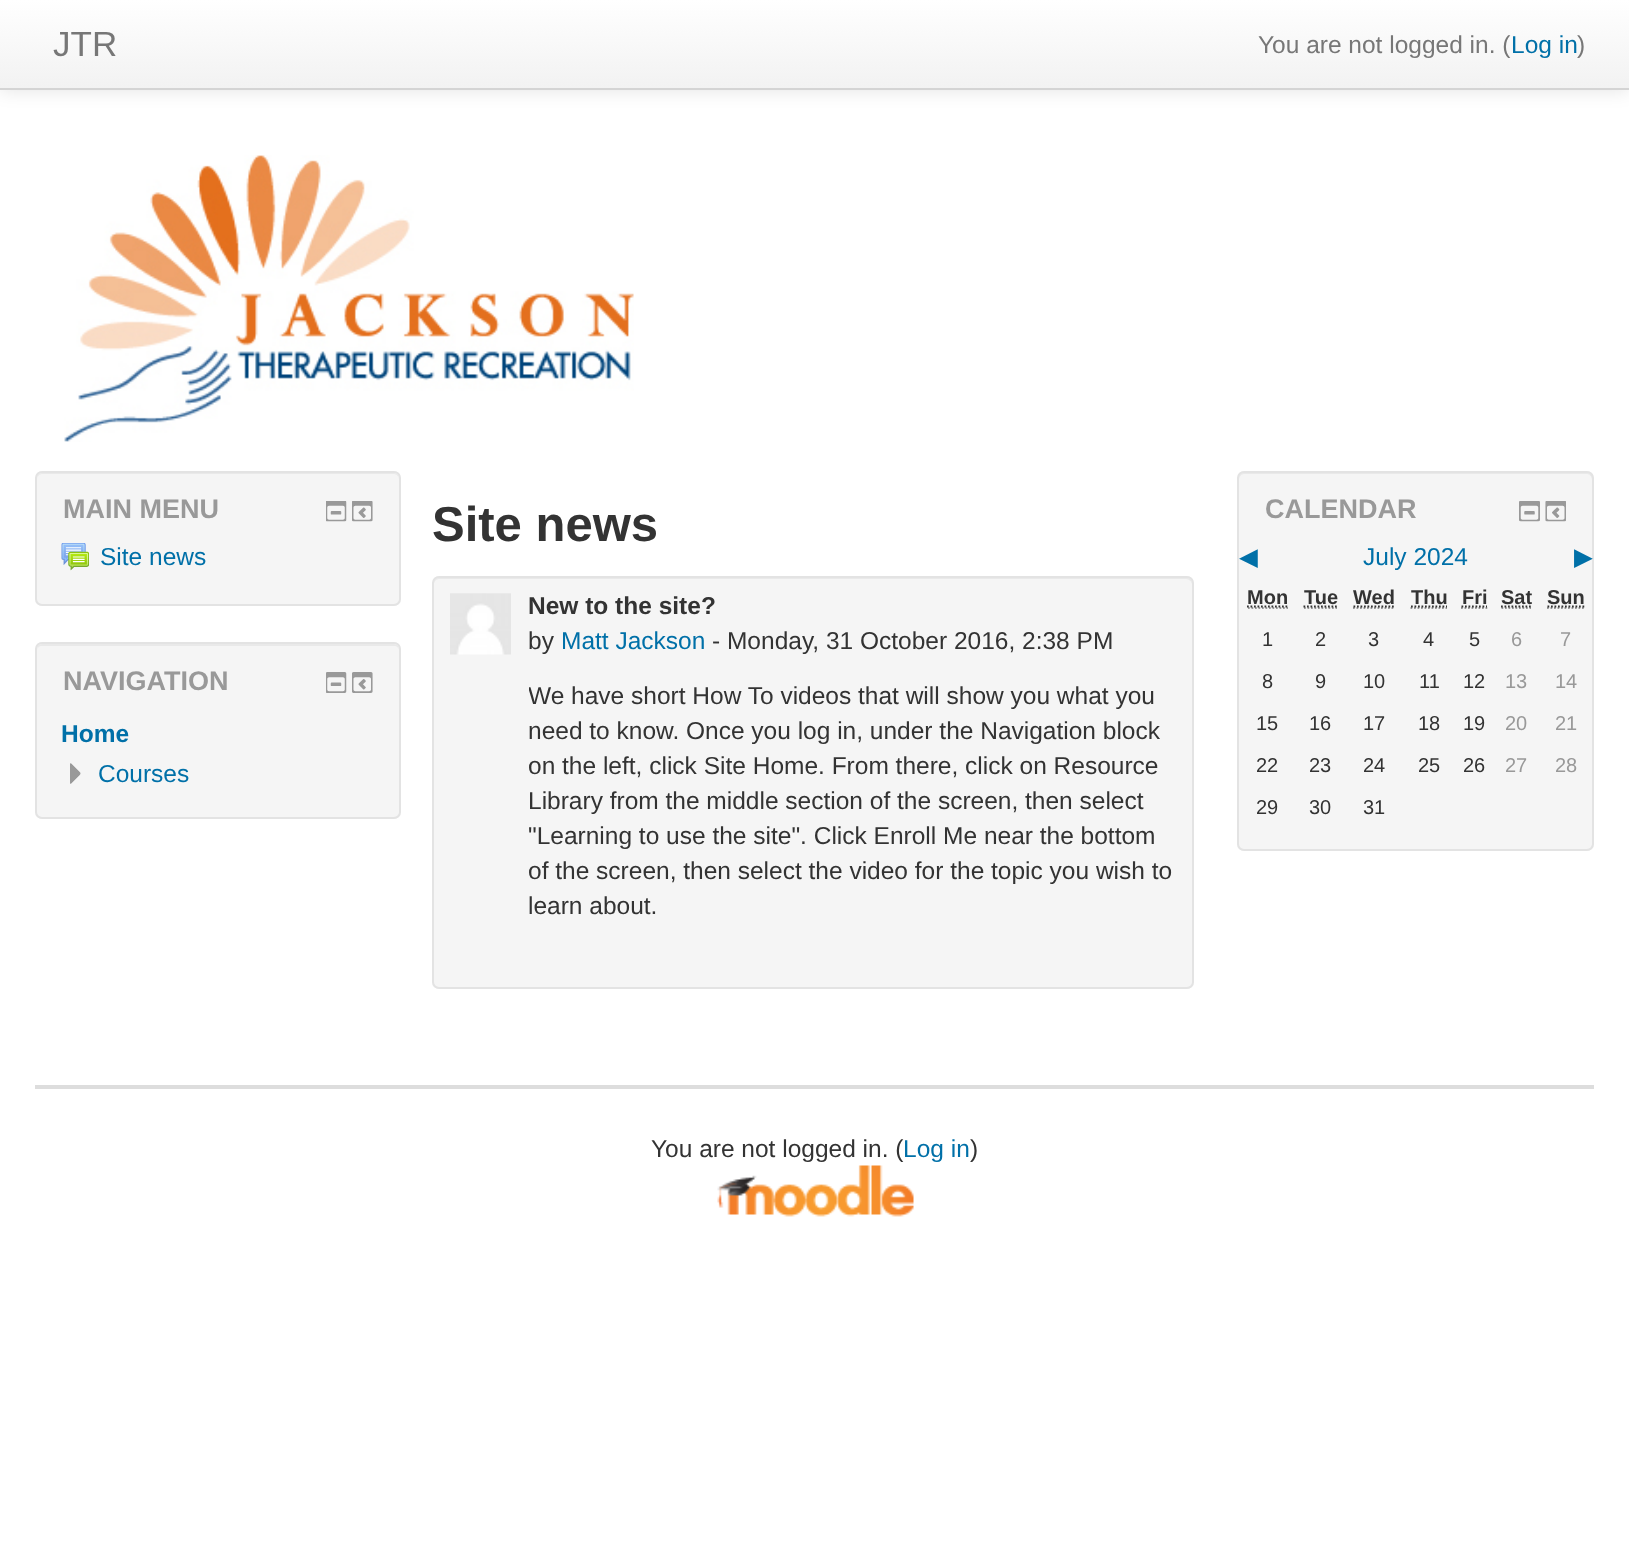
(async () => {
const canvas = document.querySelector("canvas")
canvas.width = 1629
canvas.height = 1552
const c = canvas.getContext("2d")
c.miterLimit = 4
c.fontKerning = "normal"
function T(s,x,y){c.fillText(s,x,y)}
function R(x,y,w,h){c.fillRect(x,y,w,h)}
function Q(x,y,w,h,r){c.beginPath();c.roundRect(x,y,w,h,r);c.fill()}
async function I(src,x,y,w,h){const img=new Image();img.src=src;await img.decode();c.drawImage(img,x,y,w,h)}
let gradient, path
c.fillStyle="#fff"
R(0,0,1629,1552)
c.fillStyle="#0000001a"
c.filter="blur(9px)"
c.beginPath()
c.rect(0,2,1629,89)
c.fill()
c.filter="none"
gradient = c.createLinearGradient(815,0,815,88)
gradient.addColorStop(0,"#fff")
gradient.addColorStop(1,"#f2f2f2")
c.fillStyle = gradient
R(0,0,1629,88)
c.fillStyle="#d4d4d4"
R(0,88,1629,2)
c.font="35px Liberation Sans"
c.fillStyle="#777"
T("JTR",53,56)
c.font="24.5px Liberation Sans"
T("You are not logged in. (",1258,53)
c.fillStyle="#0070a8"
T("Log in",1511,53)
c.fillStyle="#777"
T(")",1577,53)
await I("1.png",64,155,570,287)
c.fillStyle="#f5f5f5"
Q(35,471,366,135,7)
c.fillStyle="#e9e9e9"
path = new Path2D("M42 474h352c3 0 5 3 5 6c0-3-1-7-5-7h-352c-4 0-5 4-5 7c0-3 2-6 5-6z")
c.fill(path)
c.beginPath()
c.roundRect(36,472,364,133,6)
c.strokeStyle="#e3e3e3"
c.lineWidth=2
c.stroke()
c.font="bold 27px Liberation Sans"
c.fillStyle="#999"
T("MAIN MENU",63,518)
await I("2.png",326,501,21,21)
await I("3.png",352,501,21,21)
await I("4.png",61,543,28,28)
c.font="24.5px Liberation Sans"
c.fillStyle="#0070a8"
T("Site news",100,565)
c.fillStyle="#f5f5f5"
Q(35,642,366,177,7)
c.fillStyle="#e9e9e9"
path = new Path2D("M42 646h352c3 0 5 2 5 5c0-3-1-7-5-7h-352c-4 0-5 4-5 7c0-3 2-5 5-5z")
c.fill(path)
c.beginPath()
c.roundRect(36,643,364,175,6)
c.stroke()
c.font="bold 27px Liberation Sans"
c.fillStyle="#999"
T("NAVIGATION",63,690)
await I("5.png",326,672,21,21)
await I("6.png",352,672,21,21)
c.font="bold 24.5px Liberation Sans"
c.fillStyle="#0070a8"
T("Home",61,742)
await I("7.png",70,763,11,21)
c.font="24.5px Liberation Sans"
T("Courses",98,782)
c.font="bold 49px Liberation Sans"
c.fillStyle="#333"
T("Site news",432,541)
c.fillStyle="#f5f5f5"
Q(432,576,762,413,7)
c.fillStyle="#e9e9e9"
path = new Path2D("M439 579h747c3 0 6 3 6 5v-1c0-3-2-5-5-5h-748c-3 0-5 2-5 5v1c0-2 2-5 5-5z")
c.fill(path)
c.beginPath()
c.roundRect(433,577,760,411,6)
c.stroke()
await I("8.png",450,593,61,62)
c.font="bold 24.5px Liberation Sans"
c.fillStyle="#333"
T("New to the site?",528,614)
c.font="24.5px Liberation Sans"
T("by",528,649)
c.fillStyle="#0070a8"
T("Matt Jackson",561,649)
c.fillStyle="#333"
T("- Monday, 31 October 2016, 2:38 PM",712,649)
c.save()
c.beginPath()
c.rect(529,677,652,263)
c.clip()
T("We have short How To videos that will show you what you",528,704)
c.restore()
T("need to know. Once you log in, under the Navigation block",528,739)
T("on the left, click Site Home. From there, click on Resource",528,774)
T("Library from the middle section of the screen, then select",528,809)
T("\"Learning to use the site\". Click Enroll Me near the bottom",528,844)
T("of the screen, then select the video for the topic you wish to",528,879)
T("learn about.",528,914)
c.fillStyle="#f5f5f5"
Q(1237,471,357,380,7)
c.fillStyle="#e9e9e9"
path = new Path2D("M1244 474h343c3 0 5 3 5 6v365l-1 3c1-1 2-3 2-4v-366c0-3-2-5-5-5h-344c-3 0-5 2-5 5v2c0-3 2-6 5-6z")
c.fill(path)
c.beginPath()
c.roundRect(1238,472,355,378,6)
c.stroke()
c.font="bold 27px Liberation Sans"
c.fillStyle="#999"
T("CALENDAR",1265,518)
await I("9.png",1519,501,21,21)
await I("10.png",1545,501,21,21)
c.font="24.5px DejaVu Sans"
c.fillStyle="#0070a8"
T("◀︎",1239,565)
c.font="24.5px Liberation Sans"
T("July 2024",1363,565)
c.font="24.5px DejaVu Sans"
T("▶︎",1574,565)
c.font="bold 20px Liberation Sans"
c.fillStyle="#333"
T("Mon",1247,604)
path = new Path2D("M1248 608h40")
c.strokeStyle="#999"
c.lineWidth=1.8
c.setLineDash([1.75,1.75])
c.stroke(path)
path = new Path2D("M1247 606.5h40.5")
c.strokeStyle="#333"
c.stroke(path)
T("Tue",1304,604)
path = new Path2D("M1304 608h33")
c.strokeStyle="#999"
c.stroke(path)
path = new Path2D("M1303.5 606.5h33.5")
c.strokeStyle="#333"
c.stroke(path)
T("Wed",1353,604)
path = new Path2D("M1353 608h42")
c.strokeStyle="#999"
c.stroke(path)
path = new Path2D("M1353.5 606.5h41")
c.strokeStyle="#333"
c.stroke(path)
T("Thu",1411,604)
path = new Path2D("M1410.5 608h36.5")
c.strokeStyle="#999"
c.stroke(path)
path = new Path2D("M1411 606.5h36")
c.strokeStyle="#333"
c.stroke(path)
T("Fri",1462,604)
path = new Path2D("M1461 608h26.5")
c.strokeStyle="#999"
c.stroke(path)
path = new Path2D("M1461.5 606.5h25.5")
c.strokeStyle="#333"
c.stroke(path)
T("Sat",1501,604)
path = new Path2D("M1501.5 608h29.5")
c.strokeStyle="#999"
c.stroke(path)
path = new Path2D("M1501 606.5h30.5")
c.strokeStyle="#333"
c.stroke(path)
T("Sun",1547,604)
path = new Path2D("M1547 608h37")
c.strokeStyle="#999"
c.stroke(path)
path = new Path2D("M1547.5 606.5h37")
c.strokeStyle="#333"
c.stroke(path)
c.font="20px Liberation Sans"
T("1",1262,646)
T("2",1315,646)
T("3",1368,646)
T("4",1423,646)
T("5",1469,646)
c.fillStyle="#999"
T("6",1511,646)
T("7",1560,646)
c.fillStyle="#333"
T("8",1262,688)
T("9",1315,688)
T("10",1363,688)
T("11",1419,688)
T("12",1463,688)
c.fillStyle="#999"
T("13",1505,688)
T("14",1555,688)
c.fillStyle="#333"
T("15",1256,730)
T("16",1309,730)
T("17",1363,730)
T("18",1418,730)
T("19",1463,730)
c.fillStyle="#999"
T("20",1505,730)
T("21",1555,730)
c.fillStyle="#333"
T("22",1256,772)
T("23",1309,772)
T("24",1363,772)
T("25",1418,772)
T("26",1463,772)
c.fillStyle="#999"
T("27",1505,772)
T("28",1555,772)
c.fillStyle="#333"
T("29",1256,814)
T("30",1309,814)
T("31",1363,814)
c.fillStyle="#ddd"
R(35,1085,1559,4)
c.font="24.5px Liberation Sans"
c.fillStyle="#333"
T("You are not logged in. (",651,1157)
c.fillStyle="#0070a8"
T("Log in",903,1157)
c.fillStyle="#333"
T(")",970,1157)
await I("11.png",717,1165,197,52)
})()
